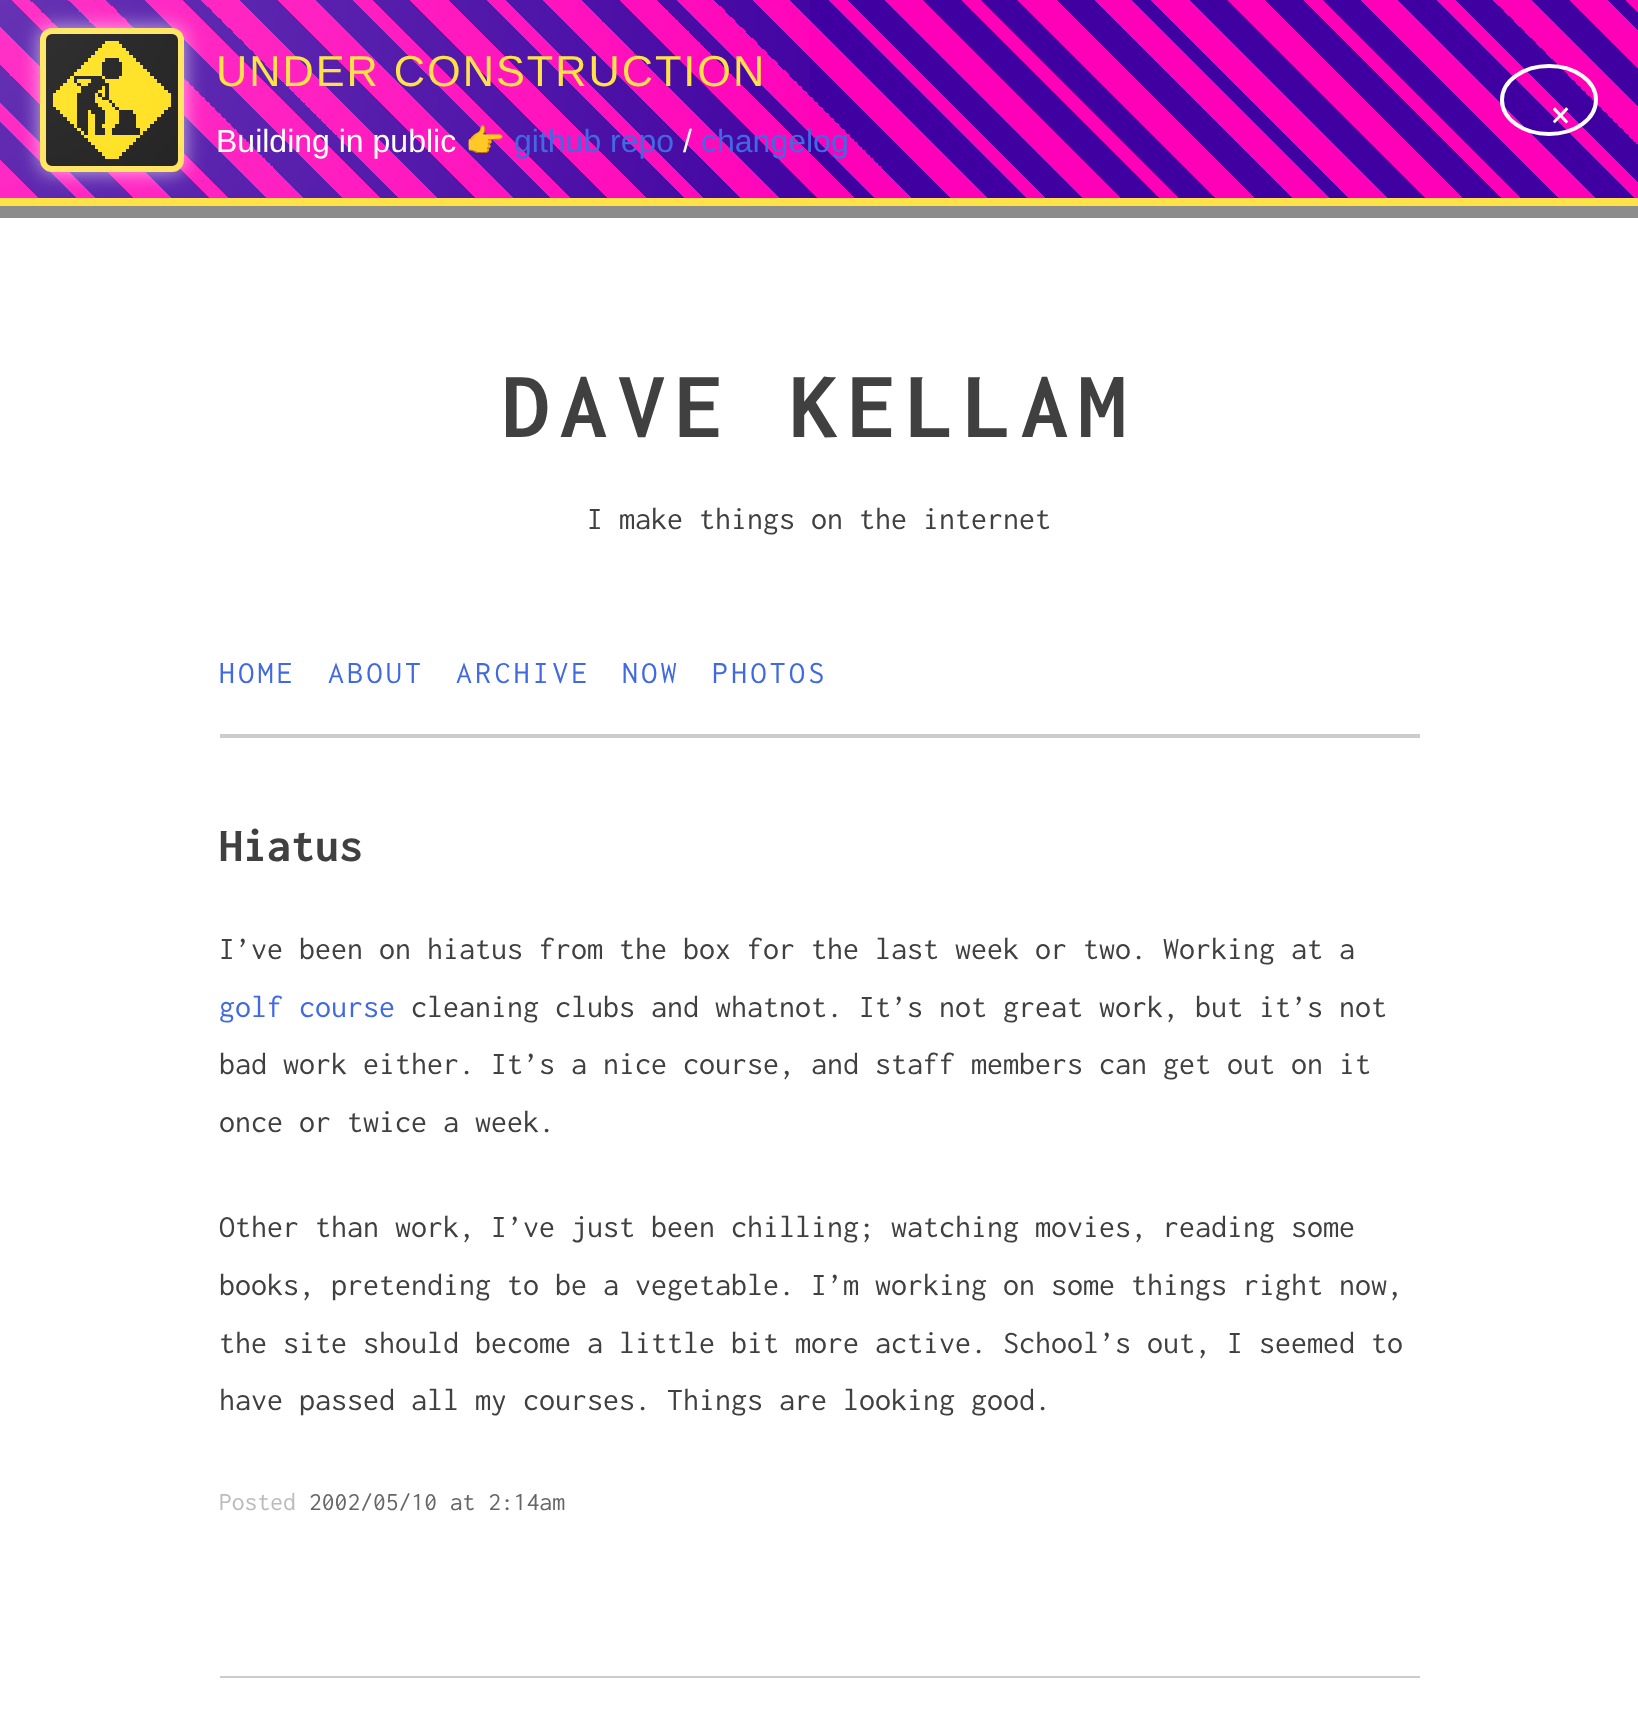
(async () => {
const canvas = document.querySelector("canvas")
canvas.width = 1638
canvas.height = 1717
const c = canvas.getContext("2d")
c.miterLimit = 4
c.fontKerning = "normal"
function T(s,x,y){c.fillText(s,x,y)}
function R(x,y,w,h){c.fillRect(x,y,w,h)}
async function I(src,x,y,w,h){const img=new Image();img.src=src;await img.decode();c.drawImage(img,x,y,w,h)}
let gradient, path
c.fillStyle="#fff"
R(0,0,1638,1717)
c.fillStyle="#8c8c8c"
R(0,206,1638,12)
gradient = c.createLinearGradient(360,558,1310,-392)
gradient.addColorStop(0,"#ff00b8")
gradient.addColorStop(.02,"#ff00b8")
gradient.addColorStop(.02,"#4000a1")
gradient.addColorStop(.04,"#4000a1")
gradient.addColorStop(.04,"#ff00b8")
gradient.addColorStop(.05,"#ff00b8")
gradient.addColorStop(.05,"#4000a1")
gradient.addColorStop(.07,"#4000a1")
gradient.addColorStop(.07,"#ff00b8")
gradient.addColorStop(.09,"#ff00b8")
gradient.addColorStop(.09,"#4000a1")
gradient.addColorStop(.11,"#4000a1")
gradient.addColorStop(.11,"#ff00b8")
gradient.addColorStop(.12,"#ff00b8")
gradient.addColorStop(.12,"#4000a1")
gradient.addColorStop(.14,"#4000a1")
gradient.addColorStop(.14,"#ff00b8")
gradient.addColorStop(.16,"#ff00b8")
gradient.addColorStop(.16,"#4000a1")
gradient.addColorStop(.18,"#4000a1")
gradient.addColorStop(.18,"#ff00b8")
gradient.addColorStop(.2,"#ff00b8")
gradient.addColorStop(.2,"#4000a1")
gradient.addColorStop(.21,"#4000a1")
gradient.addColorStop(.21,"#ff00b8")
gradient.addColorStop(.23,"#ff00b8")
gradient.addColorStop(.23,"#4000a1")
gradient.addColorStop(.25,"#4000a1")
gradient.addColorStop(.25,"#ff00b8")
gradient.addColorStop(.27,"#ff00b8")
gradient.addColorStop(.27,"#4000a1")
gradient.addColorStop(.29,"#4000a1")
gradient.addColorStop(.29,"#ff00b8")
gradient.addColorStop(.3,"#ff00b8")
gradient.addColorStop(.3,"#4000a1")
gradient.addColorStop(.32,"#4000a1")
gradient.addColorStop(.32,"#ff00b8")
gradient.addColorStop(.34,"#ff00b8")
gradient.addColorStop(.34,"#4000a1")
gradient.addColorStop(.36,"#4000a1")
gradient.addColorStop(.36,"#ff00b8")
gradient.addColorStop(.37,"#ff00b8")
gradient.addColorStop(.37,"#4000a1")
gradient.addColorStop(.39,"#4000a1")
gradient.addColorStop(.39,"#ff00b8")
gradient.addColorStop(.41,"#ff00b8")
gradient.addColorStop(.41,"#4000a1")
gradient.addColorStop(.43,"#4000a1")
gradient.addColorStop(.43,"#ff00b8")
gradient.addColorStop(.45,"#ff00b8")
gradient.addColorStop(.45,"#4000a1")
gradient.addColorStop(.46,"#4000a1")
gradient.addColorStop(.46,"#ff00b8")
gradient.addColorStop(.48,"#ff00b8")
gradient.addColorStop(.48,"#4000a1")
gradient.addColorStop(.5,"#4000a1")
gradient.addColorStop(.5,"#ff00b8")
gradient.addColorStop(.52,"#ff00b8")
gradient.addColorStop(.52,"#4000a1")
gradient.addColorStop(.54,"#4000a1")
gradient.addColorStop(.54,"#ff00b8")
gradient.addColorStop(.55,"#ff00b8")
gradient.addColorStop(.55,"#4000a1")
gradient.addColorStop(.57,"#4000a1")
gradient.addColorStop(.57,"#ff00b8")
gradient.addColorStop(.59,"#ff00b8")
gradient.addColorStop(.59,"#4000a1")
gradient.addColorStop(.61,"#4000a1")
gradient.addColorStop(.61,"#ff00b8")
gradient.addColorStop(.62,"#ff00b8")
gradient.addColorStop(.62,"#4000a1")
gradient.addColorStop(.64,"#4000a1")
gradient.addColorStop(.64,"#ff00b8")
gradient.addColorStop(.66,"#ff00b8")
gradient.addColorStop(.66,"#4000a1")
gradient.addColorStop(.68,"#4000a1")
gradient.addColorStop(.68,"#ff00b8")
gradient.addColorStop(.7,"#ff00b8")
gradient.addColorStop(.7,"#4000a1")
gradient.addColorStop(.71,"#4000a1")
gradient.addColorStop(.71,"#ff00b8")
gradient.addColorStop(.73,"#ff00b8")
gradient.addColorStop(.73,"#4000a1")
gradient.addColorStop(.75,"#4000a1")
gradient.addColorStop(.75,"#ff00b8")
gradient.addColorStop(.77,"#ff00b8")
gradient.addColorStop(.77,"#4000a1")
gradient.addColorStop(.79,"#4000a1")
gradient.addColorStop(.79,"#ff00b8")
gradient.addColorStop(.8,"#ff00b8")
gradient.addColorStop(.8,"#4000a1")
gradient.addColorStop(.82,"#4000a1")
gradient.addColorStop(.82,"#ff00b8")
gradient.addColorStop(.84,"#ff00b8")
gradient.addColorStop(.84,"#4000a1")
gradient.addColorStop(.86,"#4000a1")
gradient.addColorStop(.86,"#ff00b8")
gradient.addColorStop(.87,"#ff00b8")
gradient.addColorStop(.87,"#4000a1")
gradient.addColorStop(.89,"#4000a1")
gradient.addColorStop(.89,"#ff00b8")
gradient.addColorStop(.91,"#ff00b8")
gradient.addColorStop(.91,"#4000a1")
gradient.addColorStop(.93,"#4000a1")
gradient.addColorStop(.93,"#ff00b8")
gradient.addColorStop(.95,"#ff00b8")
gradient.addColorStop(.95,"#4000a1")
gradient.addColorStop(.96,"#4000a1")
gradient.addColorStop(.96,"#ff00b8")
gradient.addColorStop(.98,"#ff00b8")
gradient.addColorStop(.98,"#4000a1")
gradient.addColorStop(1,"#4000a1")
c.fillStyle = gradient
R(0,0,1638,198)
c.fillStyle="#ffe247"
R(0,198,1638,8)
c.fillStyle="#ffffffa6"
c.filter="blur(10px)"
c.beginPath()
c.roundRect(40,28,144,144,12)
c.fill()
c.filter="none"
c.fillStyle="#000"
c.beginPath()
c.roundRect(43,31,138,138,9)
c.fill()
c.strokeStyle="#ffe247"
c.lineWidth=6
c.stroke()
await I("1.png",53,41,118,118)
gradient = c.createRadialGradient(0,0,0,0,0,1650)
gradient.addColorStop(0,"#ffffff33")
gradient.addColorStop(.55,"#ffffff00")
c.fillStyle = gradient
R(0,0,810,198)
c.letterSpacing="2px"
c.font="43.25px Liberation Sans"
c.fillStyle="#ffe247"
T("UNDER CONSTRUCTION",216,86)
c.letterSpacing="0px"
c.font="32px Liberation Sans"
c.fillStyle="#fff"
T("Building in public",216,152)
c.font="32px Noto Color Emoji"
T("👉",465,152)
c.font="32px Liberation Sans"
c.fillStyle="#4169e1"
T("github repo",514,152)
c.fillStyle="#fff"
T("/",683,152)
c.fillStyle="#4169e1"
T("changelog",701,152)
path = new Path2D("M1549 66c26 0 47 15 47 34c0 19-21 34-47 34c-26 0-47-15-47-34c0-19 21-34 47-34z")
c.strokeStyle="#fff"
c.lineWidth=4
c.stroke(path)
c.font="45px Inconsolata"
c.fillStyle="#fff"
T("×",1549,130)
c.letterSpacing="9.6px"
c.font="bold 96px Inconsolata"
c.fillStyle="#404040"
T("DAVE KELLAM",502,437)
c.letterSpacing="0px"
c.font="32px Inconsolata"
T("I make things on the internet",587,529)
c.fillStyle="#ccc"
R(220,734,1200,4)
c.letterSpacing="3.25px"
c.fillStyle="#4169e1"
T("HOME",219,683)
T("ABOUT",328,683)
T("ARCHIVE",456,683)
T("NOW",622,683)
T("PHOTOS",712,683)
c.letterSpacing="0px"
c.font="bold 48px Inconsolata"
c.fillStyle="#404040"
T("Hiatus",219,861)
c.font="32px Inconsolata"
T("I’ve been on hiatus from the box for the last week or two. Working at a",219,959)
c.fillStyle="#4169e1"
T("golf course",219,1017)
c.fillStyle="#404040"
T("cleaning clubs and whatnot. It’s not great work, but it’s not",411,1017)
T("bad work either. It’s a nice course, and staff members can get out on it",219,1074)
T("once or twice a week.",219,1132)
T("Other than work, I’ve just been chilling; watching movies, reading some",219,1237)
T("books, pretending to be a vegetable. I’m working on some things right now,",219,1295)
T("the site should become a little bit more active. School’s out, I seemed to",219,1353)
T("have passed all my courses. Things are looking good.",219,1410)
c.font="25.6px Inconsolata"
c.fillStyle="#bbb"
T("Posted",219,1510)
c.fillStyle="#666"
T("2002/05/10 at 2:14am",309,1510)
c.fillStyle="#ccc"
R(220,1676,1200,2)
})()
